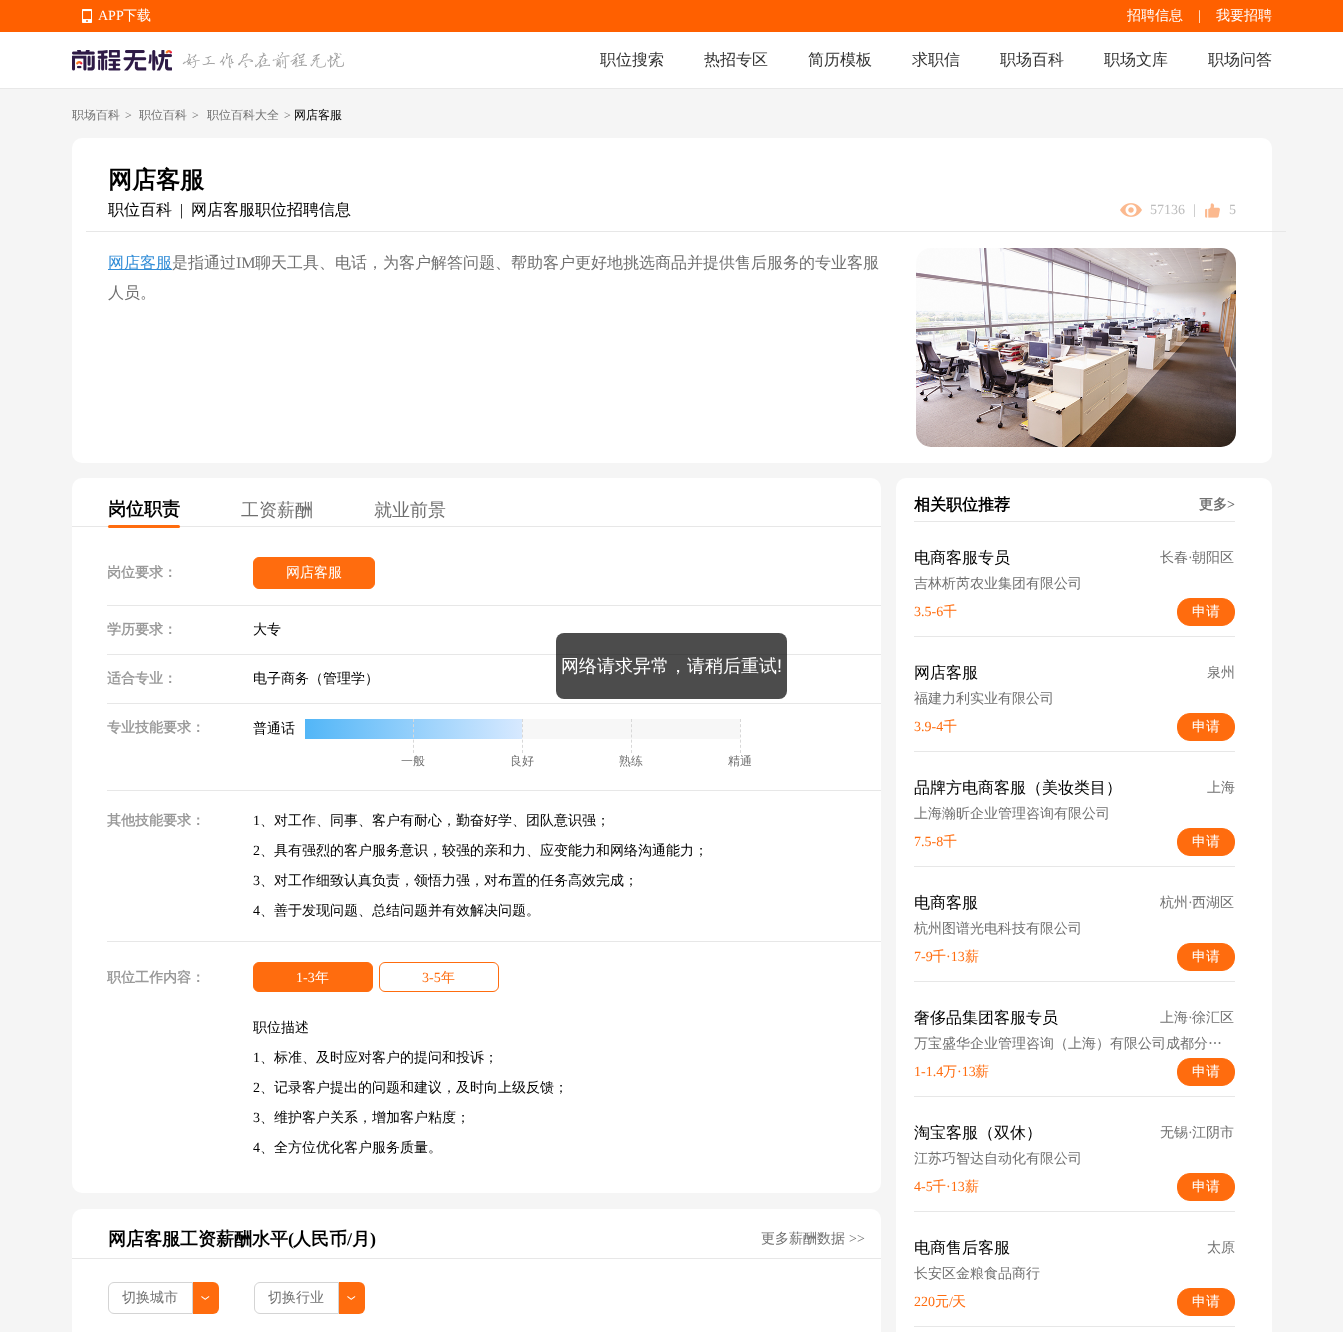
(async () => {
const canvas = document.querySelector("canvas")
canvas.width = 1343
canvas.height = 1332
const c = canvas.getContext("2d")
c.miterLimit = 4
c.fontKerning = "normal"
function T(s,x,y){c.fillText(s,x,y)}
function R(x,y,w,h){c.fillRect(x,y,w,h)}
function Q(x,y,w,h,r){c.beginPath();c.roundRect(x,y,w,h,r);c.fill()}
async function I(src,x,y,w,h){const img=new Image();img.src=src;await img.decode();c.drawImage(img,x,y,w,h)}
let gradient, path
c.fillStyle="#fff"
R(0,0,1343,1332)
c.fillStyle="#ff6000"
R(0,0,1343,32)
await I("1.png",82,9,10,14)
c.font="14px Liberation Serif"
c.fillStyle="#fff"
T("APP",98,20)
c.font="500 14px WenQuanYi Zen Hei"
T("下载",123,20)
T("招聘信息",1127,20)
c.font="14px Liberation Serif"
T("|",1198,20)
c.font="500 14px WenQuanYi Zen Hei"
T("我要招聘",1216,20)
c.fillStyle="#e8e8e8"
R(0,88,1343,1)
await I("2.png",72,50,100,21)
await I("3.png",182,52,162,17)
c.font="500 16px WenQuanYi Zen Hei"
c.fillStyle="#333"
T("职位搜索",600,65)
T("热招专区",704,65)
T("简历模板",808,65)
T("求职信",912,65)
T("职场百科",1000,65)
T("职场文库",1104,65)
T("职场问答",1208,65)
c.fillStyle="#f5f5f5"
R(0,89,1343,1243)
c.font="500 12px WenQuanYi Zen Hei"
c.fillStyle="#707070"
T("职场百科",72,119)
c.font="12px Liberation Serif"
T(">",125,119)
c.font="500 12px WenQuanYi Zen Hei"
T("职位百科",139,119)
c.font="12px Liberation Serif"
T(">",192,119)
c.font="500 12px WenQuanYi Zen Hei"
T("职位百科大全",207,119)
c.font="12px Liberation Serif"
T(">",284,119)
c.font="500 12px WenQuanYi Zen Hei"
c.fillStyle="#000"
T("网店客服",294,119)
c.fillStyle="#fff"
Q(72,138,1200,325,10)
c.font="bold 24px WenQuanYi Zen Hei"
c.fillStyle="#000"
T("网店客服",108,188)
c.font="500 16px WenQuanYi Zen Hei"
T("职位百科",108,215)
c.font="16px Liberation Serif"
T("|",180,215)
c.font="500 16px WenQuanYi Zen Hei"
T("网店客服职位招聘信息",191,215)
await I("4.png",1120,203,22,14)
c.font="14px Liberation Serif"
c.fillStyle="#bcbcbc"
T("57136",1150,214)
T("|",1193,214)
await I("5.png",1205,203,15,15)
T("5",1229,214)
c.fillStyle="#e7e7e7"
R(86,231,1200,1)
c.fillStyle="#328dd7"
R(108,269,64,1)
c.font="500 16px WenQuanYi Zen Hei"
T("网店客服",108,268)
c.fillStyle="#707070"
T("是指通过",172,268)
c.font="16px Liberation Serif"
T("IM",236,268)
c.font="500 16px WenQuanYi Zen Hei"
T("聊天工具、电话，为客户解答问题、帮助客户更好地挑选商品并提供售后服务的专业客服",255,268)
T("人员。",108,298)
await I("6.png",916,248,320,199)
c.fillStyle="#fff"
c.beginPath()
c.roundRect(72,478,809,49,[10,10,0,0])
c.fill()
c.fillStyle="#e7e7e7"
R(72,526,809,1)
c.font="bold 18px WenQuanYi Zen Hei"
c.fillStyle="#000"
T("岗位职责",108,515)
c.fillStyle="#fff"
c.beginPath()
c.roundRect(72,527,809,666,[0,0,10,10])
c.fill()
c.fillStyle="#ff6c0e"
Q(108,525,72,3,1.5)
c.font="500 18px WenQuanYi Zen Hei"
c.fillStyle="#707070"
T("工资薪酬",241,516)
T("就业前景",374,516)
c.fillStyle="#e7e7e7"
R(107,605,774,1)
c.font="bold 14px WenQuanYi Zen Hei"
c.fillStyle="#9a9a9a"
T("岗位要求：",107,577)
c.fillStyle="#ff6c0e"
c.beginPath()
c.roundRect(253.5,557.5,121,31,5.5)
c.fill()
c.strokeStyle="#ff6c0e"
c.stroke()
c.font="500 14px WenQuanYi Zen Hei"
c.fillStyle="#fff"
T("网店客服",286,577)
c.fillStyle="#e7e7e7"
R(107,654,774,1)
c.font="bold 14px WenQuanYi Zen Hei"
c.fillStyle="#9a9a9a"
T("学历要求：",107,634)
c.font="500 14px WenQuanYi Zen Hei"
c.fillStyle="#000"
T("大专",253,634)
c.fillStyle="#e7e7e7"
R(107,703,774,1)
c.font="bold 14px WenQuanYi Zen Hei"
c.fillStyle="#9a9a9a"
T("适合专业：",107,683)
c.font="500 14px WenQuanYi Zen Hei"
c.fillStyle="#000"
T("电子商务（管理学）",253,683)
c.fillStyle="#e7e7e7"
R(107,790,774,1)
c.font="bold 14px WenQuanYi Zen Hei"
c.fillStyle="#9a9a9a"
T("专业技能要求：",107,732)
c.font="500 14px WenQuanYi Zen Hei"
c.fillStyle="#000"
T("普通话",253,733)
c.fillStyle="#f7f7f7"
R(522,719,218,20)
gradient = c.createLinearGradient(522,729,305,729)
gradient.addColorStop(0,"#d7e9ff")
gradient.addColorStop(1,"#52b6f7")
c.fillStyle = gradient
R(305,719,217,20)
path = new Path2D("M413.5 719v34")
c.strokeStyle="#d8d8d8"
c.setLineDash([3,2.17])
c.stroke(path)
c.font="500 12px WenQuanYi Zen Hei"
c.fillStyle="#707070"
T("一般",401,765)
path = new Path2D("M522.5 719v34")
c.stroke(path)
T("良好",510,765)
path = new Path2D("M631.5 719v34")
c.stroke(path)
T("熟练",619,765)
path = new Path2D("M740.5 719v34")
c.stroke(path)
T("精通",728,765)
c.fillStyle="#e7e7e7"
R(107,941,774,1)
c.font="bold 14px WenQuanYi Zen Hei"
c.fillStyle="#9a9a9a"
T("其他技能要求：",107,825)
c.font="14px Liberation Serif"
c.fillStyle="#000"
T("1",253,825)
c.font="500 14px WenQuanYi Zen Hei"
T("、对工作、同事、客户有耐心，勤奋好学、团队意识强；",260,825)
c.font="14px Liberation Serif"
T("2",253,855)
c.font="500 14px WenQuanYi Zen Hei"
T("、具有强烈的客户服务意识，较强的亲和力、应变能力和网络沟通能力；",260,855)
c.font="14px Liberation Serif"
T("3",253,885)
c.font="500 14px WenQuanYi Zen Hei"
T("、对工作细致认真负责，领悟力强，对布置的任务高效完成；",260,885)
c.font="14px Liberation Serif"
T("4",253,915)
c.font="500 14px WenQuanYi Zen Hei"
T("、善于发现问题、总结问题并有效解决问题。",260,915)
c.font="bold 14px WenQuanYi Zen Hei"
c.fillStyle="#9a9a9a"
T("职位工作内容：",107,982)
c.fillStyle="#ff6c0e"
c.beginPath()
c.roundRect(253.5,962.5,119,29,5.5)
c.fill()
c.strokeStyle="#ff6c0e"
c.setLineDash([])
c.stroke()
c.font="14px Liberation Serif"
c.fillStyle="#fff"
T("1-3",296,982)
c.font="500 14px WenQuanYi Zen Hei"
T("年",315,982)
c.beginPath()
c.roundRect(379.5,962.5,119,29,5.5)
c.stroke()
c.font="14px Liberation Serif"
c.fillStyle="#ff6c0e"
T("3-5",422,982)
c.font="500 14px WenQuanYi Zen Hei"
T("年",441,982)
c.fillStyle="#000"
T("职位描述",253,1032)
c.font="14px Liberation Serif"
T("1",253,1062)
c.font="500 14px WenQuanYi Zen Hei"
T("、标准、及时应对客户的提问和投诉；",260,1062)
c.font="14px Liberation Serif"
T("2",253,1092)
c.font="500 14px WenQuanYi Zen Hei"
T("、记录客户提出的问题和建议，及时向上级反馈；",260,1092)
c.font="14px Liberation Serif"
T("3",253,1122)
c.font="500 14px WenQuanYi Zen Hei"
T("、维护客户关系，增加客户粘度；",260,1122)
c.font="14px Liberation Serif"
T("4",253,1152)
c.font="500 14px WenQuanYi Zen Hei"
T("、全方位优化客户服务质量。",260,1152)
c.fillStyle="#fff"
Q(72,1209,809,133,10)
c.fillStyle="#e7e7e7"
R(72,1258,809,1)
c.font="bold 18px WenQuanYi Zen Hei"
c.fillStyle="#000"
T("网店客服工资薪酬水平",108,1245)
c.font="bold 18px Liberation Serif"
T("(",288,1245)
c.font="bold 18px WenQuanYi Zen Hei"
T("人民币",293,1245)
c.font="bold 18px Liberation Serif"
T("/",347,1245)
c.font="bold 18px WenQuanYi Zen Hei"
T("月",352,1245)
c.font="bold 18px Liberation Serif"
T(")",370,1245)
c.font="500 14px WenQuanYi Zen Hei"
c.fillStyle="#707070"
T("更多薪酬数据",761,1243)
c.font="14px Liberation Serif"
T(">>",849,1243)
c.beginPath()
c.roundRect(108.5,1282.5,84,31,[5.5,0,0,5.5])
c.strokeStyle="#d4d4d4"
c.stroke()
c.font="500 14px WenQuanYi Zen Hei"
T("切换城市",122,1302)
c.fillStyle="#fafafb"
c.beginPath()
c.roundRect(193,1282,26,32,[0,4,4,0])
c.fill()
c.fillStyle="#ff6c0e"
c.beginPath()
c.roundRect(193,1282,26,32,[0,6,6,0])
c.fill()
await I("7.png",201,1296,9,4)
c.beginPath()
c.roundRect(254.5,1282.5,84,31,[5.5,0,0,5.5])
c.stroke()
c.fillStyle="#707070"
T("切换行业",268,1302)
c.fillStyle="#fafafb"
c.beginPath()
c.roundRect(339,1282,26,32,[0,4,4,0])
c.fill()
c.fillStyle="#ff6c0e"
c.beginPath()
c.roundRect(339,1282,26,32,[0,6,6,0])
c.fill()
await I("7.png",347,1296,9,4)
c.fillStyle="#fff"
Q(896,478,376,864,10)
c.fillStyle="#e7e7e7"
R(914,521,321,1)
c.font="bold 16px WenQuanYi Zen Hei"
c.fillStyle="#000"
T("相关职位推荐",914,510)
c.font="bold 14px WenQuanYi Zen Hei"
c.fillStyle="#707070"
T("更多",1199,509)
c.font="bold 14px Liberation Serif"
T(">",1227,509)
c.fillStyle="#e7e7e7"
R(914,636,321,1)
c.font="500 16px WenQuanYi Zen Hei"
c.fillStyle="#000"
T("电商客服专员",914,563)
c.font="500 14px WenQuanYi Zen Hei"
c.fillStyle="#707070"
T("长春",1160,562)
c.font="14px Liberation Serif"
T("·",1188,562)
c.font="500 14px WenQuanYi Zen Hei"
T("朝阳区",1192,562)
T("吉林析芮农业集团有限公司",914,588)
c.font="14px Liberation Serif"
c.fillStyle="#ff6c0e"
T("3.5-6",914,616)
c.font="500 14px WenQuanYi Zen Hei"
T("千",943,616)
c.beginPath()
c.roundRect(1177.5,598.5,57,27,12.5)
c.fill()
c.strokeStyle="#ff6c0e"
c.stroke()
c.fillStyle="#fff"
T("申请",1192,616)
c.fillStyle="#e7e7e7"
R(914,751,321,1)
c.font="500 16px WenQuanYi Zen Hei"
c.fillStyle="#000"
T("网店客服",914,678)
c.font="500 14px WenQuanYi Zen Hei"
c.fillStyle="#707070"
T("泉州",1207,677)
T("福建力利实业有限公司",914,703)
c.font="14px Liberation Serif"
c.fillStyle="#ff6c0e"
T("3.9-4",914,731)
c.font="500 14px WenQuanYi Zen Hei"
T("千",943,731)
c.beginPath()
c.roundRect(1177.5,713.5,57,27,12.5)
c.fill()
c.stroke()
c.fillStyle="#fff"
T("申请",1192,731)
c.fillStyle="#e7e7e7"
R(914,866,321,1)
c.font="500 16px WenQuanYi Zen Hei"
c.fillStyle="#000"
T("品牌方电商客服（美妆类目）",914,793)
c.font="500 14px WenQuanYi Zen Hei"
c.fillStyle="#707070"
T("上海",1207,792)
T("上海瀚昕企业管理咨询有限公司",914,818)
c.font="14px Liberation Serif"
c.fillStyle="#ff6c0e"
T("7.5-8",914,846)
c.font="500 14px WenQuanYi Zen Hei"
T("千",943,846)
c.beginPath()
c.roundRect(1177.5,828.5,57,27,12.5)
c.fill()
c.stroke()
c.fillStyle="#fff"
T("申请",1192,846)
c.fillStyle="#e7e7e7"
R(914,981,321,1)
c.font="500 16px WenQuanYi Zen Hei"
c.fillStyle="#000"
T("电商客服",914,908)
c.font="500 14px WenQuanYi Zen Hei"
c.fillStyle="#707070"
T("杭州",1160,907)
c.font="14px Liberation Serif"
T("·",1188,907)
c.font="500 14px WenQuanYi Zen Hei"
T("西湖区",1192,907)
T("杭州图谱光电科技有限公司",914,933)
c.font="14px Liberation Serif"
c.fillStyle="#ff6c0e"
T("7-9",914,961)
c.font="500 14px WenQuanYi Zen Hei"
T("千",932,961)
c.font="14px Liberation Serif"
T("·13",946,961)
c.font="500 14px WenQuanYi Zen Hei"
T("薪",965,961)
c.beginPath()
c.roundRect(1177.5,943.5,57,27,12.5)
c.fill()
c.stroke()
c.fillStyle="#fff"
T("申请",1192,961)
c.fillStyle="#e7e7e7"
R(914,1096,321,1)
c.font="500 16px WenQuanYi Zen Hei"
c.fillStyle="#000"
T("奢侈品集团客服专员",914,1023)
c.font="500 14px WenQuanYi Zen Hei"
c.fillStyle="#707070"
T("上海",1160,1022)
c.font="14px Liberation Serif"
T("·",1188,1022)
c.font="500 14px WenQuanYi Zen Hei"
T("徐汇区",1192,1022)
T("万宝盛华企业管理咨询（上海）有限公司成都分…",914,1048)
c.font="14px Liberation Serif"
c.fillStyle="#ff6c0e"
T("1-1.4",914,1076)
c.font="500 14px WenQuanYi Zen Hei"
T("万",943,1076)
c.font="14px Liberation Serif"
T("·13",957,1076)
c.font="500 14px WenQuanYi Zen Hei"
T("薪",975,1076)
c.beginPath()
c.roundRect(1177.5,1058.5,57,27,12.5)
c.fill()
c.stroke()
c.fillStyle="#fff"
T("申请",1192,1076)
c.fillStyle="#e7e7e7"
R(914,1211,321,1)
c.font="500 16px WenQuanYi Zen Hei"
c.fillStyle="#000"
T("淘宝客服（双休）",914,1138)
c.font="500 14px WenQuanYi Zen Hei"
c.fillStyle="#707070"
T("无锡",1160,1137)
c.font="14px Liberation Serif"
T("·",1188,1137)
c.font="500 14px WenQuanYi Zen Hei"
T("江阴市",1192,1137)
T("江苏巧智达自动化有限公司",914,1163)
c.font="14px Liberation Serif"
c.fillStyle="#ff6c0e"
T("4-5",914,1191)
c.font="500 14px WenQuanYi Zen Hei"
T("千",932,1191)
c.font="14px Liberation Serif"
T("·13",946,1191)
c.font="500 14px WenQuanYi Zen Hei"
T("薪",965,1191)
c.beginPath()
c.roundRect(1177.5,1173.5,57,27,12.5)
c.fill()
c.stroke()
c.fillStyle="#fff"
T("申请",1192,1191)
c.fillStyle="#e7e7e7"
R(914,1326,321,1)
c.font="500 16px WenQuanYi Zen Hei"
c.fillStyle="#000"
T("电商售后客服",914,1253)
c.font="500 14px WenQuanYi Zen Hei"
c.fillStyle="#707070"
T("太原",1207,1252)
T("长安区金粮食品商行",914,1278)
c.font="14px Liberation Serif"
c.fillStyle="#ff6c0e"
T("220",914,1306)
c.font="500 14px WenQuanYi Zen Hei"
T("元",935,1306)
c.font="14px Liberation Serif"
T("/",949,1306)
c.font="500 14px WenQuanYi Zen Hei"
T("天",952,1306)
c.beginPath()
c.roundRect(1177.5,1288.5,57,27,12.5)
c.fill()
c.stroke()
c.fillStyle="#fff"
T("申请",1192,1306)
c.fillStyle="#000000b3"
Q(556,633,231,66,8)
c.font="500 18px WenQuanYi Zen Hei"
c.fillStyle="#fff"
T("网络请求异常，请稍后重试",561,672)
c.font="18px Liberation Sans"
T("!",777,672)
})()
